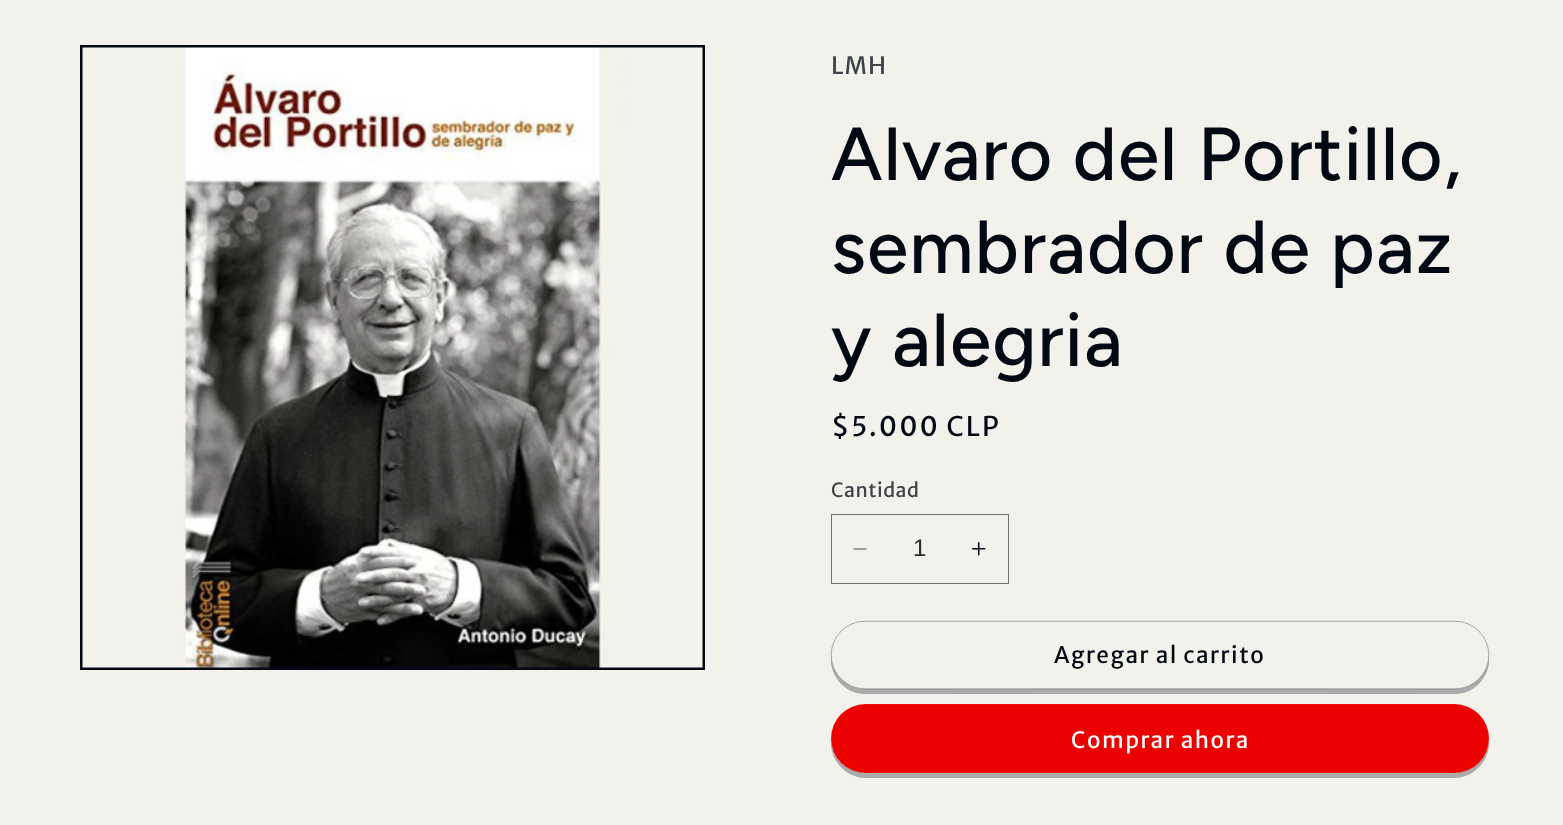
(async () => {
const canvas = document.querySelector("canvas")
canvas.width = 1563
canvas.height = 825
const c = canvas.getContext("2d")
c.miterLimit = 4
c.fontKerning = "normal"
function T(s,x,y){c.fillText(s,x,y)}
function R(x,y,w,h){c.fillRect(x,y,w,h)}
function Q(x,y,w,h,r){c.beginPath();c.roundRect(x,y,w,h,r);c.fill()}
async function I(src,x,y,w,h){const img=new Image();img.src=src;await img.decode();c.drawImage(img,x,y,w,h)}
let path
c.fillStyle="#f2f1eb"
R(0,0,1563,825)
c.strokeStyle="#020912"
c.lineWidth=3
c.strokeRect(81.5,46.5,622,622)
await I("1.png",82,47,621,621)
c.letterSpacing="1px"
c.font="24px Merriweather Sans"
c.fillStyle="#3e4348"
T("LMH",831,74)
c.letterSpacing="1.1px"
c.font="500 75px Figtree"
c.fillStyle="#020912"
T("Alvaro del Portillo,",831,180)
T("sembrador de paz",831,273)
T("y alegria",831,366)
c.letterSpacing="2px"
c.font="27px Merriweather Sans"
T("$5.000 CLP",831,436)
c.letterSpacing="0.5px"
c.font="19.5px Merriweather Sans"
c.fillStyle="#3e4348"
T("Cantidad",831,497)
await I("2.png",853,548,14,2)
await I("3.png",972,542,14,14)
c.strokeStyle="#6e7174"
c.lineWidth=1
c.strokeRect(831.5,514.5,177,69)
c.letterSpacing="0px"
c.font="24px Liberation Sans"
c.fillStyle="#262c33"
T("1",913,556)
c.fillStyle="#aaabaa"
path = new Path2D("M831 656c-2 20 14 38 34 38h590c20 0 36-18 34-38c-1 18-16 33-34 33h-590c-18 0-33-15-34-33z")
c.fill(path)
c.fillStyle="#f2f1eb"
Q(831,621,658,68,34)
c.beginPath()
c.roundRect(831.2,621.2,657.6,67.6,33.8)
c.strokeStyle="#020912cc"
c.lineWidth=0.4
c.stroke()
c.letterSpacing="1.5px"
c.font="22.5px Merriweather Sans"
c.fillStyle="#020912"
T("Agregar al carrito",1054,663)
c.fillStyle="#aaabaa"
path = new Path2D("M831 739c-2 20 14 39 35 39h588c21 0 37-19 35-39c-1 19-16 33-35 33h-588c-19 0-34-14-35-33z")
c.fill(path)
c.fillStyle="#ec0101"
Q(831,704,658,69,34.5)
c.beginPath()
c.roundRect(831.2,704.2,657.6,68.6,34.3)
c.strokeStyle="#fcfcfc33"
c.stroke()
c.fillStyle="#fcfcfc"
T("Comprar ahora",1071,748)
})()
